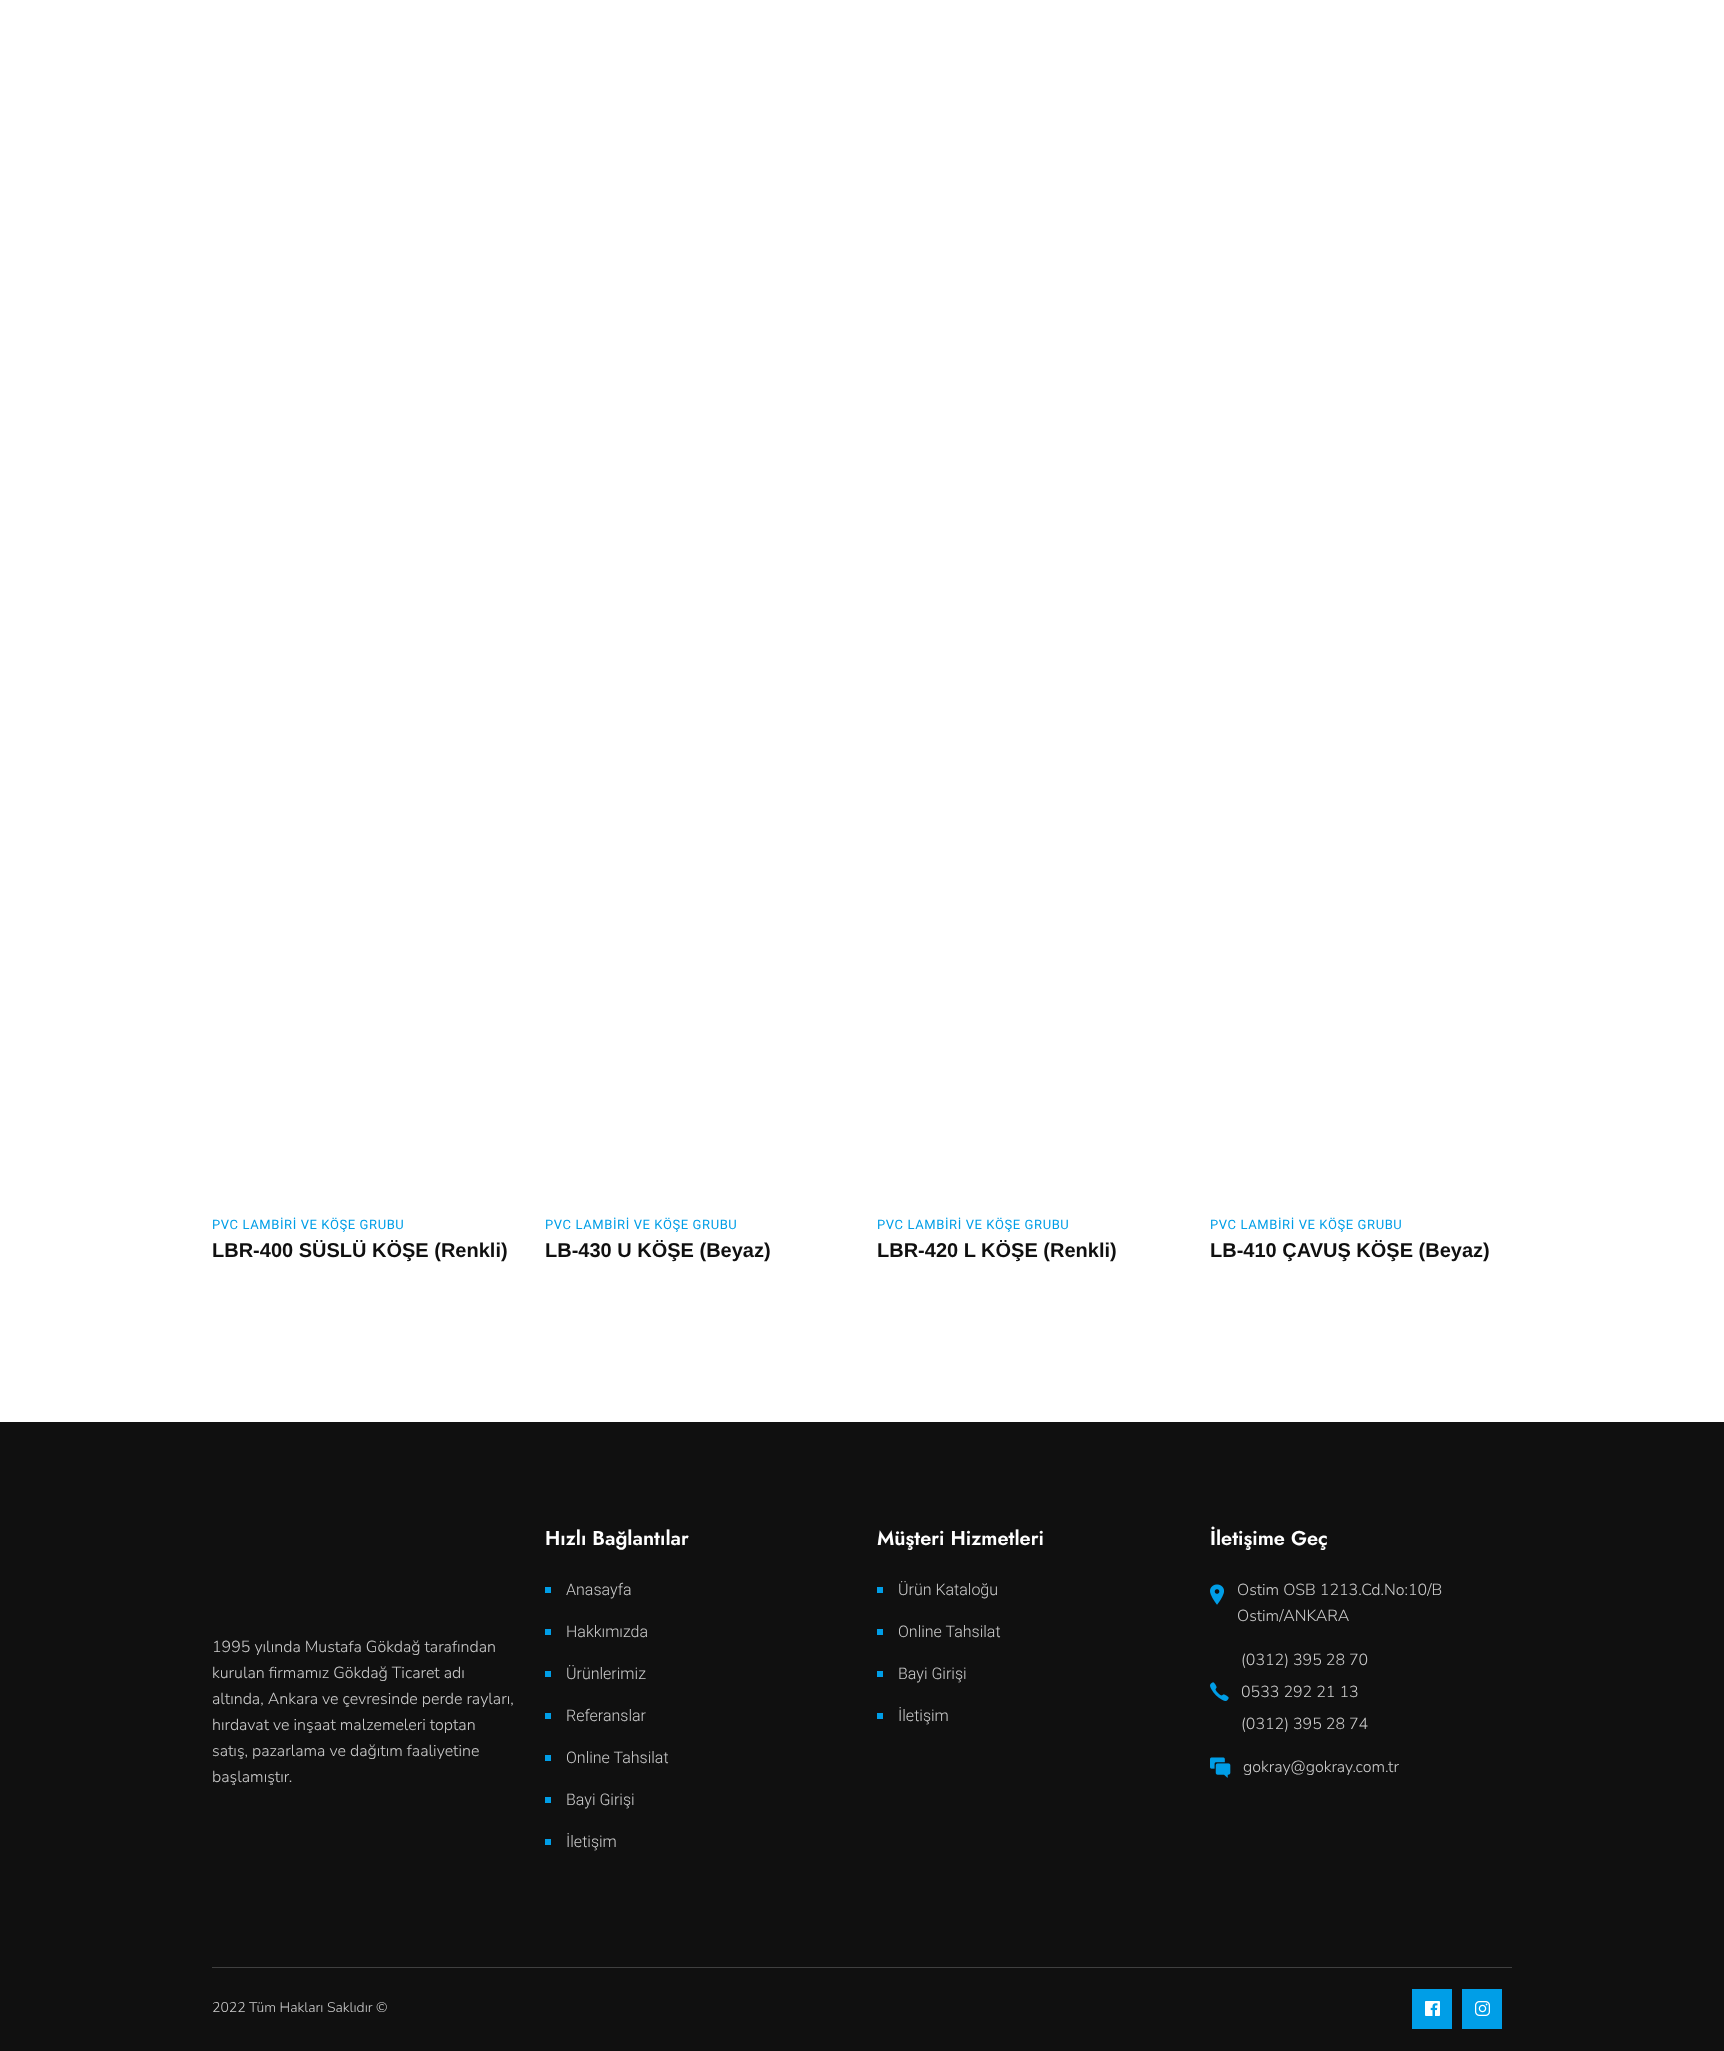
(async () => {
const canvas = document.querySelector("canvas")
canvas.width = 1724
canvas.height = 2051
const c = canvas.getContext("2d")
c.miterLimit = 4
c.fontKerning = "normal"
function T(s,x,y){c.fillText(s,x,y)}
function R(x,y,w,h){c.fillRect(x,y,w,h)}
async function I(src,x,y,w,h){const img=new Image();img.src=src;await img.decode();c.drawImage(img,x,y,w,h)}
c.fillStyle="#fff"
R(0,0,1724,2051)
c.letterSpacing="0.6px"
c.font="13px Roboto"
c.fillStyle="#009ee7"
T("PVC LAMBİRİ VE KÖŞE GRUBU",212,1229)
c.letterSpacing="0px"
c.font="bold 20px Liberation Sans"
c.fillStyle="#101010"
T("LBR-400 SÜSLÜ KÖŞE (Renkli)",212,1257)
c.letterSpacing="0.6px"
c.font="13px Roboto"
c.fillStyle="#009ee7"
T("PVC LAMBİRİ VE KÖŞE GRUBU",545,1229)
c.letterSpacing="0px"
c.font="bold 20px Liberation Sans"
c.fillStyle="#101010"
T("LB-430 U KÖŞE (Beyaz)",545,1257)
c.letterSpacing="0.6px"
c.font="13px Roboto"
c.fillStyle="#009ee7"
T("PVC LAMBİRİ VE KÖŞE GRUBU",877,1229)
c.letterSpacing="0px"
c.font="bold 20px Liberation Sans"
c.fillStyle="#101010"
T("LBR-420 L KÖŞE (Renkli)",877,1257)
c.letterSpacing="0.6px"
c.font="13px Roboto"
c.fillStyle="#009ee7"
T("PVC LAMBİRİ VE KÖŞE GRUBU",1210,1229)
c.letterSpacing="0px"
c.font="bold 20px Liberation Sans"
c.fillStyle="#101010"
T("LB-410 ÇAVUŞ KÖŞE (Beyaz)",1210,1257)
R(0,1422,1724,629)
c.font="300 16px Nunito Sans"
c.fillStyle="#ccc"
T("1995 yılında Mustafa Gökdağ tarafından",212,1652)
T("kurulan firmamız Gökdağ Ticaret adı",212,1678)
T("altında, Ankara ve çevresinde perde rayları,",212,1704)
T("hırdavat ve inşaat malzemeleri toptan",212,1730)
T("satış, pazarlama ve dağıtım faaliyetine",212,1756)
T("başlamıştır.",212,1782)
c.font="600 20px Jost"
c.fillStyle="#fff"
T("Hızlı Bağlantılar",545,1545)
c.fillStyle="#009ee7"
R(545,1587,6,6)
c.font="300 16px Roboto"
c.fillStyle="#ccc"
T("Anasayfa",566,1595)
c.fillStyle="#009ee7"
R(545,1629,6,6)
c.fillStyle="#ccc"
T("Hakkımızda",566,1637)
c.fillStyle="#009ee7"
R(545,1671,6,6)
c.fillStyle="#ccc"
T("Ürünlerimiz",566,1679)
c.fillStyle="#009ee7"
R(545,1713,6,6)
c.fillStyle="#ccc"
T("Referanslar",566,1721)
c.fillStyle="#009ee7"
R(545,1755,6,6)
c.fillStyle="#ccc"
T("Online Tahsilat",566,1763)
c.fillStyle="#009ee7"
R(545,1797,6,6)
c.fillStyle="#ccc"
T("Bayi Girişi",566,1805)
c.fillStyle="#009ee7"
R(545,1839,6,6)
c.fillStyle="#ccc"
T("İletişim",566,1847)
c.font="600 20px Jost"
c.fillStyle="#fff"
T("Müşteri Hizmetleri",877,1545)
c.fillStyle="#009ee7"
R(877,1587,6,6)
c.font="300 16px Roboto"
c.fillStyle="#ccc"
T("Ürün Kataloğu",898,1595)
c.fillStyle="#009ee7"
R(877,1629,6,6)
c.fillStyle="#ccc"
T("Online Tahsilat",898,1637)
c.fillStyle="#009ee7"
R(877,1671,6,6)
c.fillStyle="#ccc"
T("Bayi Girişi",898,1679)
c.fillStyle="#009ee7"
R(877,1713,6,6)
c.fillStyle="#ccc"
T("İletişim",898,1721)
c.font="600 20px Jost"
c.fillStyle="#fff"
T("İletişime Geç",1210,1545)
await I("1.png",1210,1584,14,21)
c.font="300 16px Nunito Sans"
c.fillStyle="#ccc"
T("Ostim OSB 1213.Cd.No:10/B",1237,1595)
T("Ostim/ANKARA",1237,1621)
await I("2.png",1210,1682,19,19)
T("(0312) 395 28 70",1241,1665)
T("0533 292 21 13",1241,1697)
T("(0312) 395 28 74",1241,1729)
await I("3.png",1210,1757,21,21)
T("gokray@gokray.com.tr",1243,1772)
c.fillStyle="#404040"
R(212,1967,1300,1)
c.font="300 14px Nunito Sans"
c.fillStyle="#ccc"
T("2022 Tüm Hakları Saklıdır ©",212,2012)
c.fillStyle="#009ee7"
R(1412,1989,40,40)
await I("4.png",1425,2001,15,15)
R(1462,1989,40,40)
await I("5.png",1475,2001,15,15)
})()
